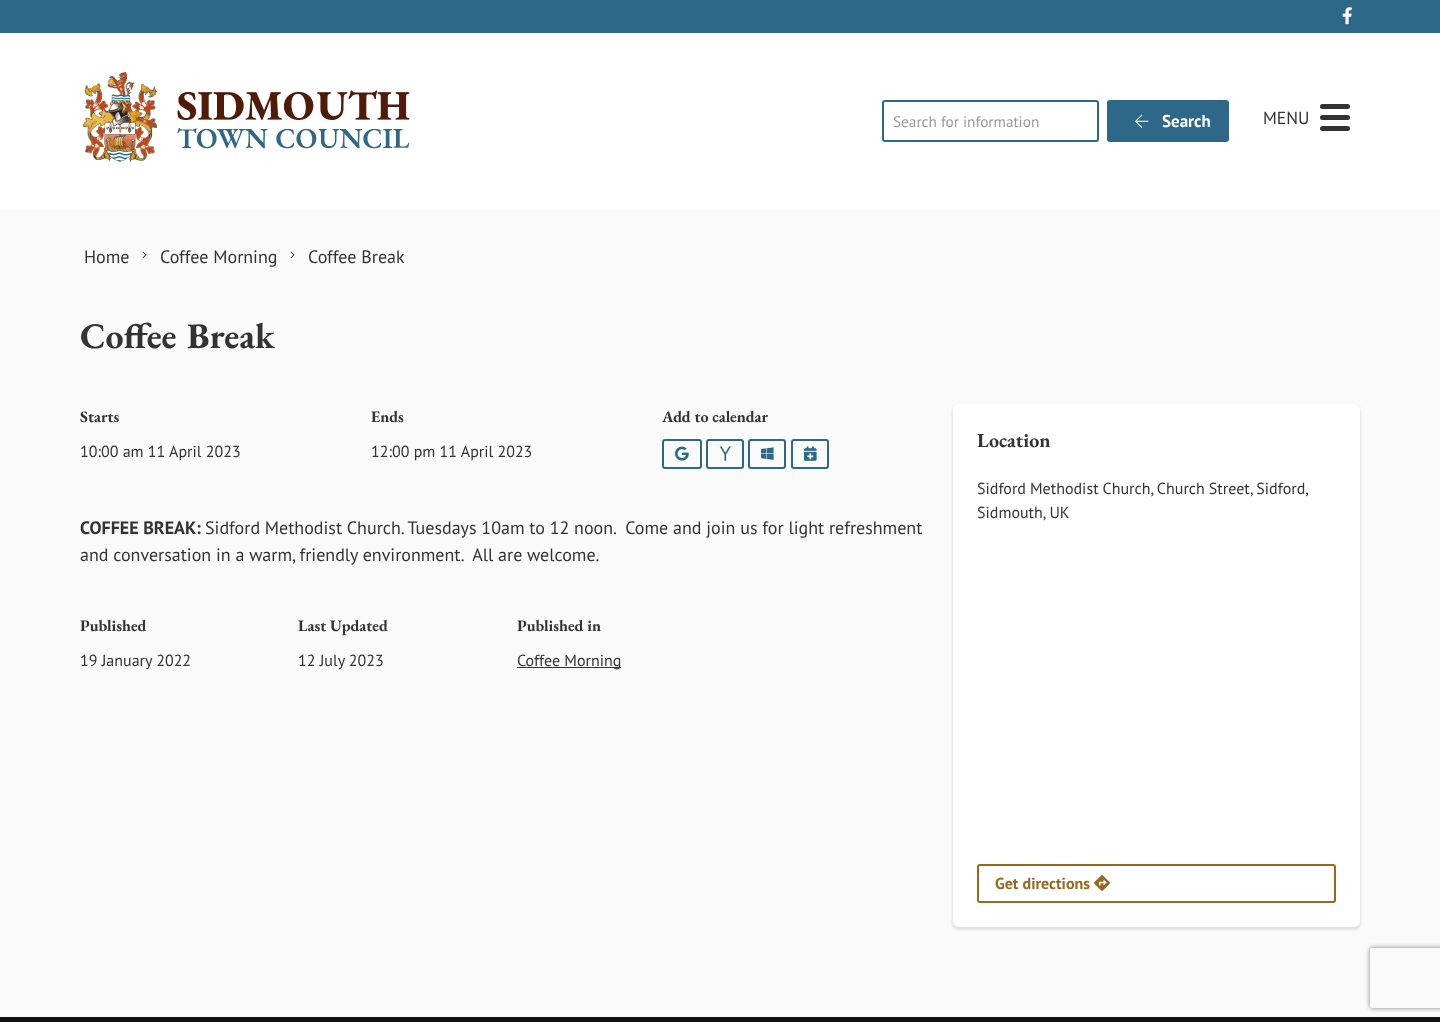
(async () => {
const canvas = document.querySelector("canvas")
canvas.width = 1440
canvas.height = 1022
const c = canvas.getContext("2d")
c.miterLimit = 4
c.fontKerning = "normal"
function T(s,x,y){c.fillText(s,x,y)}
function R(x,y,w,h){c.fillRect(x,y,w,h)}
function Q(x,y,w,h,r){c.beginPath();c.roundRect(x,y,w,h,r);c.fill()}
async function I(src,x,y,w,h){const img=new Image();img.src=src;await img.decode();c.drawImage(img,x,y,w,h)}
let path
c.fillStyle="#fafafa"
R(0,0,1440,1022)
c.fillStyle="#2e6889"
R(0,0,1440,33)
await I("1.png",1342,7,10,18)
c.fillStyle="#fff"
R(0,33,1440,176)
await I("2.png",83,72,327,90)
c.beginPath()
c.roundRect(883,101,215,40,2)
c.strokeStyle="#2e6889"
c.lineWidth=2
c.stroke()
c.font="15.25px PT Sans"
c.fillStyle="#999"
T("Search for information",893,127)
c.fillStyle="#2e6889"
c.beginPath()
c.roundRect(1108,101,120,40,2)
c.fill()
c.stroke()
await I("3.png",1135,114,14,14)
c.font="bold 17px PT Sans"
c.fillStyle="#fff"
T("Search",1162,127)
c.font="17.5px PT Sans"
c.fillStyle="#333"
T("MENU",1263,124)
Q(1320,126,30,5,2.5)
Q(1320,104,30,5,2.5)
Q(1320,115,30,5,2.5)
c.font="18px PT Sans"
T("Home",84,263)
await I("4.png",142,251,5,8)
T("Coffee Morning",160,263)
await I("4.png",290,251,5,8)
T("Coffee Break",308,263)
c.wordSpacing="2px"
c.font="bold 36px EB Garamond"
T("Coffee Break",80,348)
c.wordSpacing="0px"
c.font="bold 16px EB Garamond"
T("Starts",80,422)
c.font="16px PT Sans"
T("10:00 am 11 April 2023",80,457)
c.font="bold 16px EB Garamond"
T("Ends",371,422)
c.font="16px PT Sans"
T("12:00 pm 11 April 2023",371,457)
c.font="bold 16px EB Garamond"
T("Add to calendar",662,422)
c.beginPath()
c.roundRect(663,440,38,28,2)
c.stroke()
await I("5.png",675,446,14,15)
c.beginPath()
c.roundRect(707,440,36,28,2)
c.stroke()
await I("6.png",719,446,12,15)
c.beginPath()
c.roundRect(749,440,36,28,2)
c.stroke()
await I("7.png",761,447,13,13)
c.beginPath()
c.roundRect(792,440,36,28,2)
c.stroke()
await I("8.png",804,446,13,15)
c.font="bold 18px PT Sans"
T("COFFEE BREAK:",80,534)
c.font="18px PT Sans"
T("Sidford Methodist Church. Tuesdays 10am to 12 noon.  Come and join us for light refreshment",205,534)
T("and conversation in a warm, friendly environment.  All are welcome.",80,561)
c.font="bold 16px EB Garamond"
T("Published",80,631)
c.font="16px PT Sans"
T("19 January 2022",80,666)
c.font="bold 16px EB Garamond"
T("Last Updated",298,631)
c.font="16px PT Sans"
T("12 July 2023",298,666)
c.font="bold 16px EB Garamond"
T("Published in",517,631)
R(517,667,104,1)
c.font="16px PT Sans"
T("Coffee Morning",517,666)
c.fillStyle="#0000001a"
c.filter="blur(1px)"
c.beginPath()
c.roundRect(952,405,409,525,7)
c.fill()
c.filter="none"
c.fillStyle="#fff"
Q(953,404,407,523,6)
c.font="bold 20px EB Garamond"
c.fillStyle="#333"
T("Location",977,447)
c.wordSpacing="-0.25px"
c.font="16px PT Sans"
T("Sidford Methodist Church, Church Street, Sidford,",977,494)
c.wordSpacing="0px"
T("Sidmouth, UK",977,518)
c.beginPath()
c.roundRect(978,865,357,37,2)
c.strokeStyle="#986821"
c.stroke()
c.font="bold 16px PT Sans"
c.fillStyle="#986821"
T("Get directions",995,889)
await I("9.png",1094,875,16,16)
c.fillStyle="#111"
R(0,1017,1440,5)
c.save()
path = new Path2D("M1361 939h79v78h-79zm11 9h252c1 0 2 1 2 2v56c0 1-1 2-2 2h-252c-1 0-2-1-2-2v-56c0-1 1-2 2-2z")
c.clip(path,"evenodd")
c.fillStyle="#808080"
c.filter="blur(2.5px)"
c.beginPath()
c.roundRect(1370,948,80,60,2)
c.fill()
c.filter="none"
c.restore()
})()
